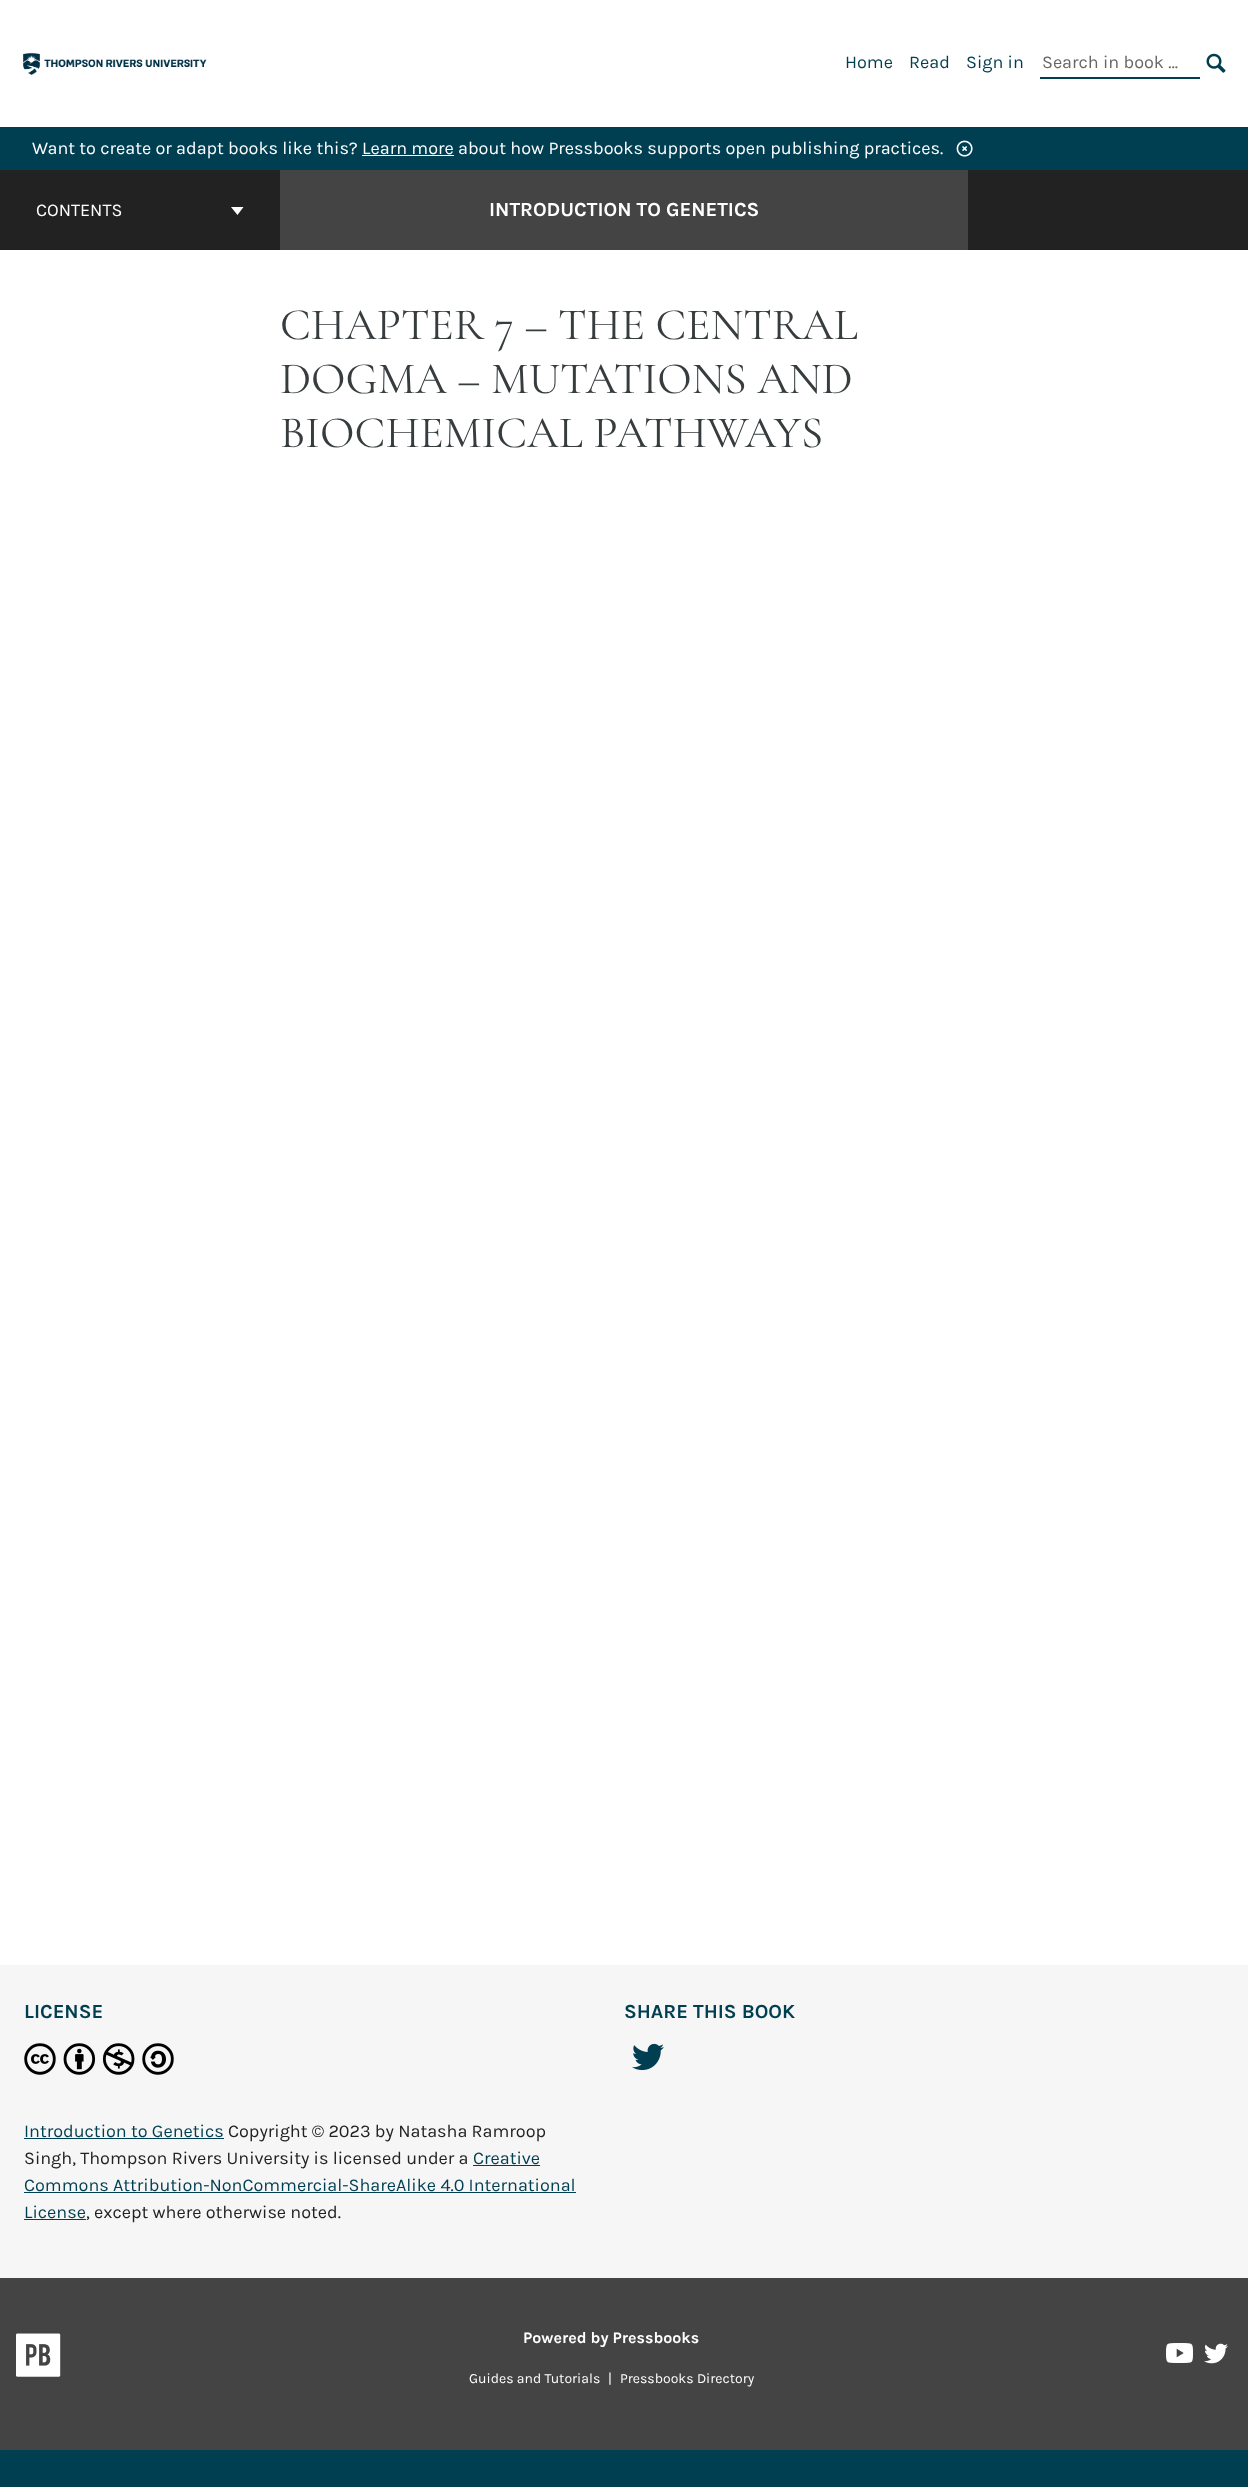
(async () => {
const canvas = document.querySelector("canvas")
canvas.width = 1248
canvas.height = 2487
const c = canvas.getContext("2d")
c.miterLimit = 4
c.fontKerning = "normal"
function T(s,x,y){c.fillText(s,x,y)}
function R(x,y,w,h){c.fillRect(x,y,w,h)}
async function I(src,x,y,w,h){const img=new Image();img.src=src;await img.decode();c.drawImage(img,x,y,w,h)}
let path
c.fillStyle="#fff"
R(0,0,1248,2487)
await I("1.png",23,52,184,23)
c.font="18px Karla"
c.fillStyle="#003e51"
T("Home",845,68)
T("Read",909,68)
T("Sign in",966,68)
R(1040,77,160,2)
c.fillStyle="#666"
T("Search in book …",1042,68)
await I("2.png",1206,53,20,20)
c.fillStyle="#003e51"
R(0,127,1248,43)
c.fillStyle="#fff"
T("Want to create or adapt books like this? Learn more about how Pressbooks supports open publishing practices.",32,154)
await I("3.png",956,140,17,17)
R(362,155,92,1)
c.fillStyle="#222"
R(0,170,1248,80)
c.fillStyle="#fff"
T("CONTENTS",36,216)
path = new Path2D("M237.5 215l-6.5-8h12.5z")
c.fill(path,"evenodd")
c.fillStyle="#444"
R(280,170,688,80)
c.font="bold 20px Karla"
c.fillStyle="#fff"
T("INTRODUCTION TO GENETICS",489,216)
c.font="45px Cormorant Garamond"
c.fillStyle="#373d3f"
T("CHAPTER 7 – THE CENTRAL",280,339)
T("DOGMA – MUTATIONS AND",280,393)
T("BIOCHEMICAL PATHWAYS",280,447)
c.fillStyle="#f6f6f6"
R(0,1965,1248,313)
c.font="bold 20px Karla"
c.fillStyle="#003e51"
T("LICENSE",24,2018)
await I("4.png",24,2043,150,32)
c.font="18px Karla"
T("Introduction to Genetics",24,2137)
R(24,2138,200,1)
c.fillStyle="#222"
T("Copyright © 2023 by Natasha Ramroop",228,2137)
T("Singh, Thompson Rivers University is licensed under a",24,2164)
c.fillStyle="#003e51"
T("Creative",473,2164)
R(473,2165,67,1)
T("Commons Attribution-NonCommercial-ShareAlike 4.0 International",24,2191)
R(24,2192,552,1)
T("License",24,2218)
R(24,2219,62,1)
c.fillStyle="#222"
T(", except where otherwise noted.",86,2218)
c.font="bold 20px Karla"
c.fillStyle="#003e51"
T("SHARE THIS BOOK",624,2018)
await I("5.png",632,2043,32,28)
R(0,2450,1248,37)
c.fillStyle="#444"
R(0,2278,1248,172)
await I("6.png",16,2333,45,44)
c.font="bold 16px Karla"
c.fillStyle="#fff"
T("Powered by Pressbooks",523,2343)
c.font="14px Karla"
T("Guides and Tutorials",469,2383)
T("|",608,2383)
T("Pressbooks Directory",620,2383)
await I("7.png",1166,2343,27,20)
await I("8.png",1204,2343,24,21)
})()
